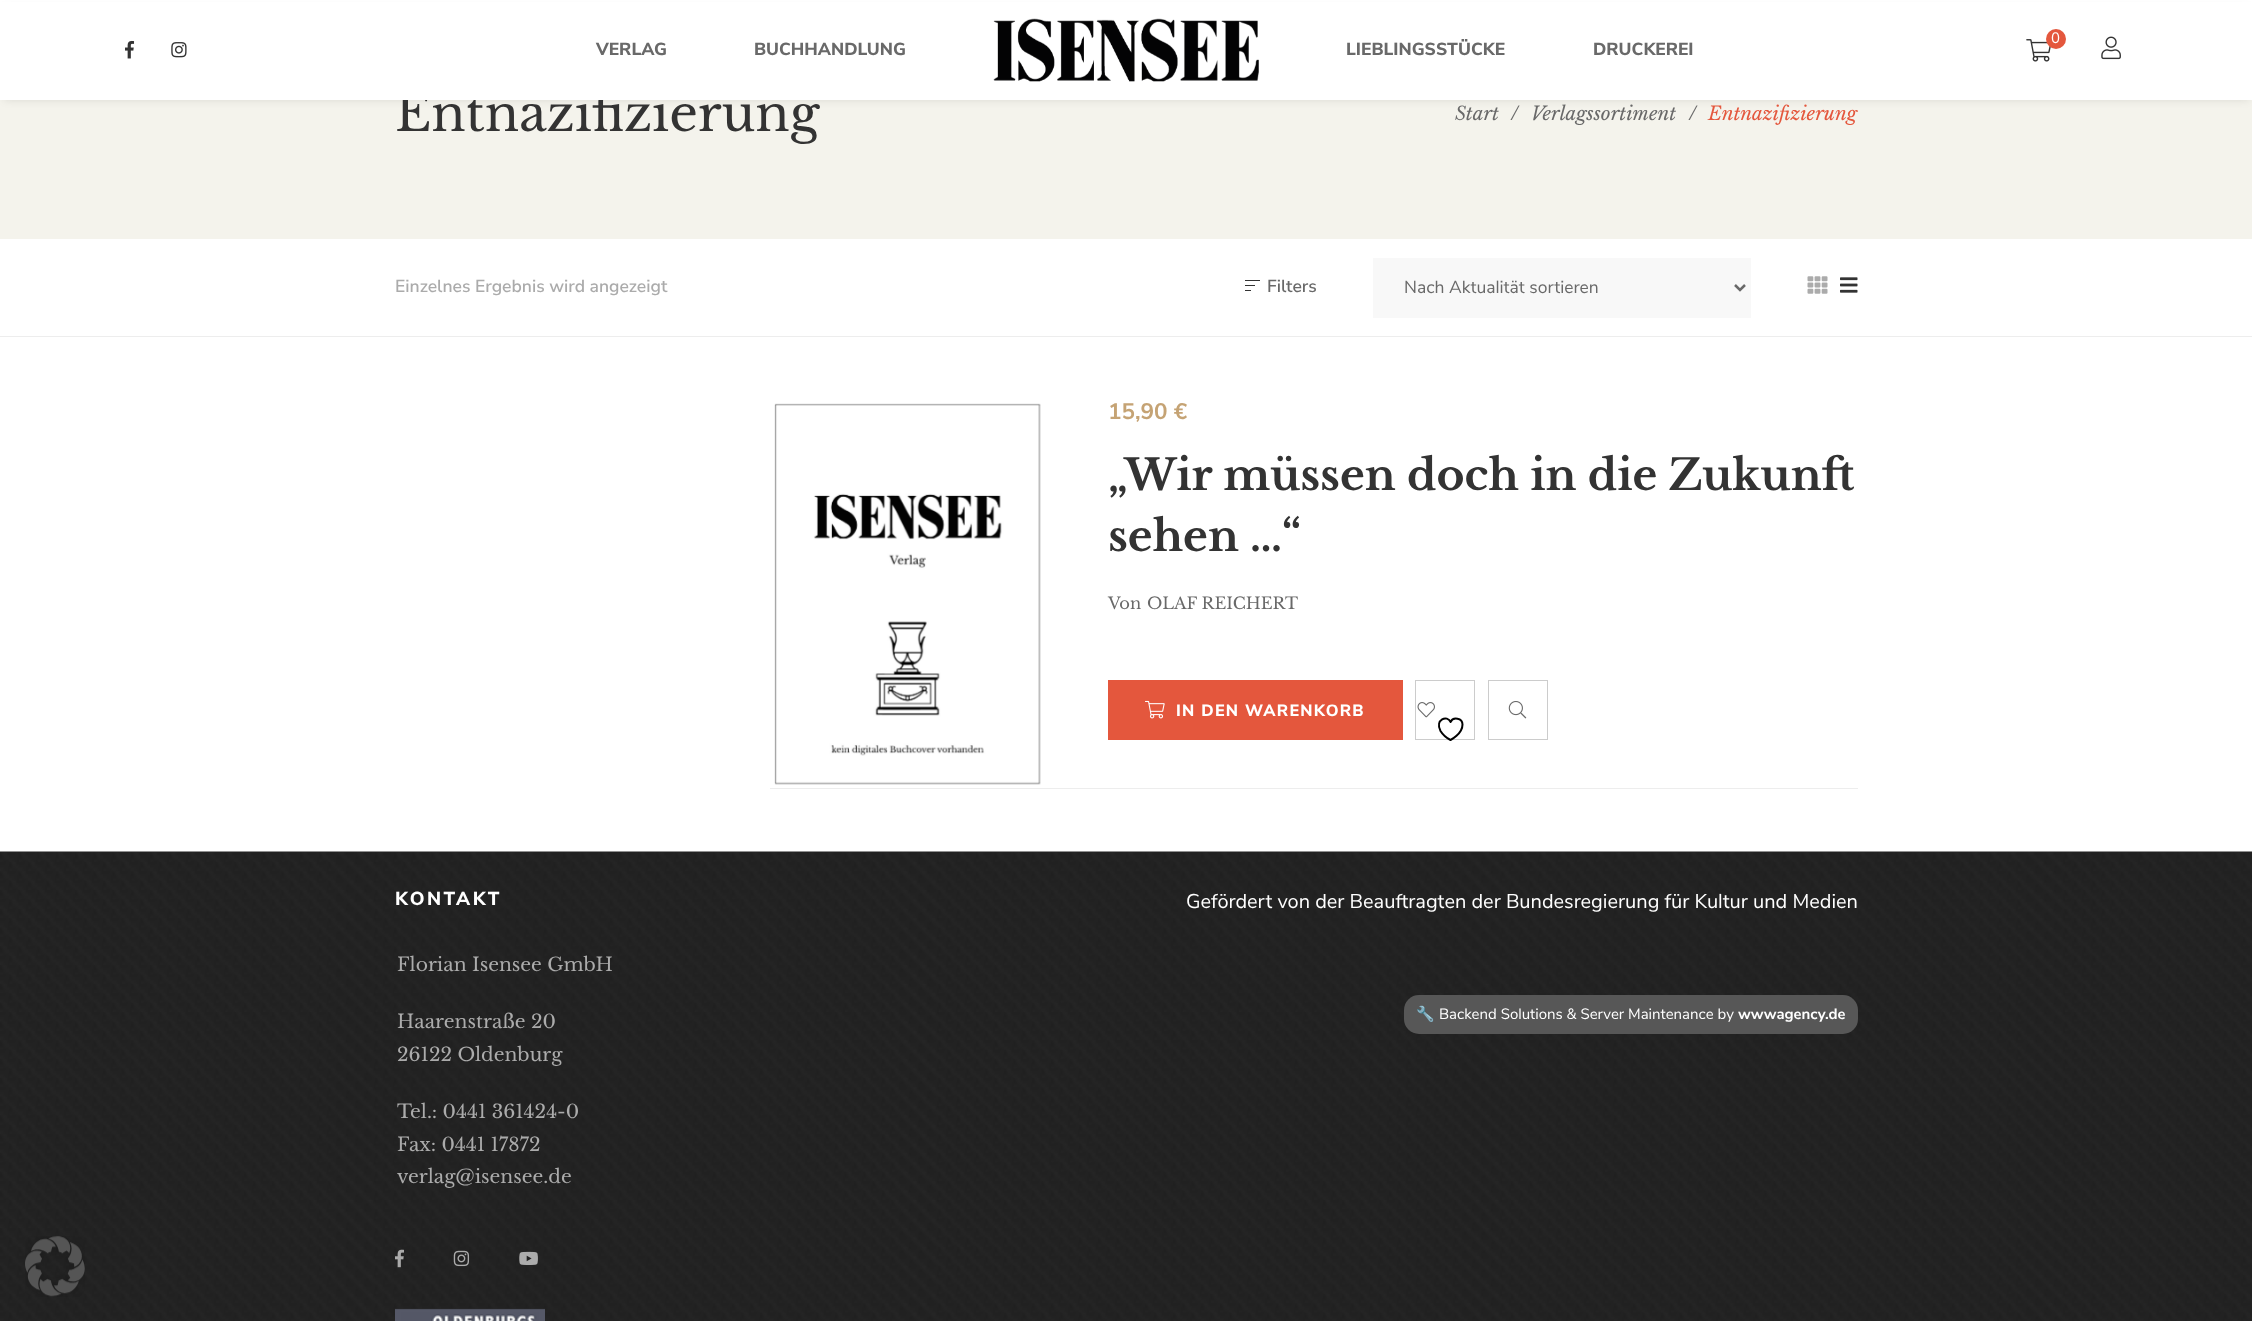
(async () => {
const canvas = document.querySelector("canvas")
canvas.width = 2252
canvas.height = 1321
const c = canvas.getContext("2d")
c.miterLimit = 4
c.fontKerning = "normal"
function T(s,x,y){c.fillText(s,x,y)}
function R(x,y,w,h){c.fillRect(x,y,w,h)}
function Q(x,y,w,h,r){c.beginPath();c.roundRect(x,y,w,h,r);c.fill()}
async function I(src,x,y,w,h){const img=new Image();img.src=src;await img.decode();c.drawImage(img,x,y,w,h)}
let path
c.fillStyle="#fff"
R(0,0,2252,1321)
c.fillStyle="#f4f3ec"
R(0,100,2252,139)
c.fillStyle="#0000001a"
c.filter="blur(4.5px)"
c.beginPath()
c.rect(4,8,2245,92)
c.fill()
c.filter="none"
c.font="50px Libre Baskerville"
c.fillStyle="#333"
T("Entnazifizierung",395,131)
c.fillStyle="#fff"
R(0,2,2252,98)
await I("1.png",125,40,10,19)
await I("2.png",171,42,16,16)
c.font="800 17.5px Nunito Sans"
c.fillStyle="#696969"
T("VERLAG",596,55)
T("BUCHHANDLUNG",754,55)
await I("3.png",993,18,266,64)
T("LIEBLINGSSTÜCKE",1346,55)
T("DRUCKEREI",1593,55)
await I("4.png",2026,39,25,23)
c.fillStyle="#e4573d"
c.beginPath()
c.arc(2056,39,10,0,7)
c.fill()
c.font="15px Nunito Sans"
c.fillStyle="#fff"
T("0",2051,43)
await I("5.png",2101,36,20,24)
c.font="italic 18.75px Libre Baskerville"
c.fillStyle="#696969"
T("Start",1455,120)
T("/",1511,120)
T("Verlagssortiment",1531,120)
T("/",1689,120)
c.fillStyle="#e4573d"
T("Entnazifizierung",1708,120)
c.fillStyle="#ededed"
R(0,336,2252,1)
c.font="600 17.5px Nunito Sans"
c.fillStyle="#ababab"
T("Einzelnes Ergebnis wird angezeigt",395,292)
c.fillStyle="#333"
R(1245,285,10,1)
R(1245,280,15,1)
R(1245,290,6,1)
c.fillStyle="#696969"
T("Filters",1267,292)
c.fillStyle="#f8f8f8"
R(1373,258,378,60)
path = new Path2D("M1735 285l5 5l5-5")
c.strokeStyle="#696969"
c.lineWidth=2.5
c.stroke(path)
c.font="17.5px Nunito Sans"
c.fillStyle="#696969"
T("Nach Aktualität sortieren",1404,293)
await I("6.png",1807,276,21,18)
await I("7.png",1840,277,18,16)
c.fillStyle="#ededed"
R(770,788,1088,1)
await I("8.png",774,403,267,382)
c.font="bold 22.5px Nunito Sans"
c.fillStyle="#c5a374"
T("15,90 €",1108,419)
c.font="bold 42.5px Libre Baskerville"
c.fillStyle="#333"
T("„Wir müssen doch in die Zukunft",1108,490)
T("sehen …“",1108,551)
c.font="16.25px Libre Baskerville"
c.fillStyle="#696969"
T("Von",1108,609)
T("OLAF REICHERT",1147,609)
c.fillStyle="#e4573d"
R(1108,680,295,60)
await I("9.png",1145,700,20,19)
c.letterSpacing="1.25px"
c.font="800 16.25px Nunito Sans"
c.fillStyle="#fff"
T("IN DEN WARENKORB",1176,716)
c.strokeStyle="#ccc"
c.lineWidth=1
c.strokeRect(1415.5,680.5,59,59)
await I("10.png",1417,702,18,16)
path = new Path2D("M1462.5 724.5c0-6.5-9.5-8-12-2.5c-3-7.5-16-2.5-10 9c2.5 4 6 7 10 9c0 0 12-6 12-15.5z")
c.strokeStyle="#000"
c.lineWidth=2
c.lineCap="round"
c.lineJoin="round"
c.stroke(path)
c.strokeStyle="#ccc"
c.lineWidth=1
c.lineJoin="miter"
c.strokeRect(1488.5,680.5,59,59)
await I("11.png",1508,701,19,18)
await I("12.png",0,851,2252,470)
c.letterSpacing="2.5px"
c.font="800 18.75px Nunito Sans"
T("KONTAKT",395,905)
c.letterSpacing="0px"
c.font="18.75px Libre Baskerville"
c.fillStyle="#ababab"
T("Florian Isensee GmbH",397,971)
T("Haarenstraße 20",397,1028)
T("26122 Oldenburg",397,1061)
T("Tel.: 0441 361424-0",397,1118)
T("Fax: 0441 17872",397,1151)
T("verlag@isensee.de",397,1183)
await I("13.png",395,1249,9,19)
await I("14.png",453,1250,17,17)
await I("15.png",519,1251,19,14)
await I("16.png",395,1308,150,13)
c.font="20px Nunito Sans"
c.fillStyle="#fff"
T("Gefördert von der Beauftragten der Bundesregierung für Kultur und Medien",1186,908)
c.fillStyle="#575757"
Q(1404,995,454,39,15)
c.font="15px Noto Color Emoji"
c.fillStyle="#fff"
T("🔧",1416,1019)
c.font="15px Nunito Sans"
T("Backend Solutions & Server Maintenance by",1439,1019)
c.font="bold 15px Nunito Sans"
T("wwwagency.de",1738,1019)
await I("17.png",25,1236,60,61)
})()
